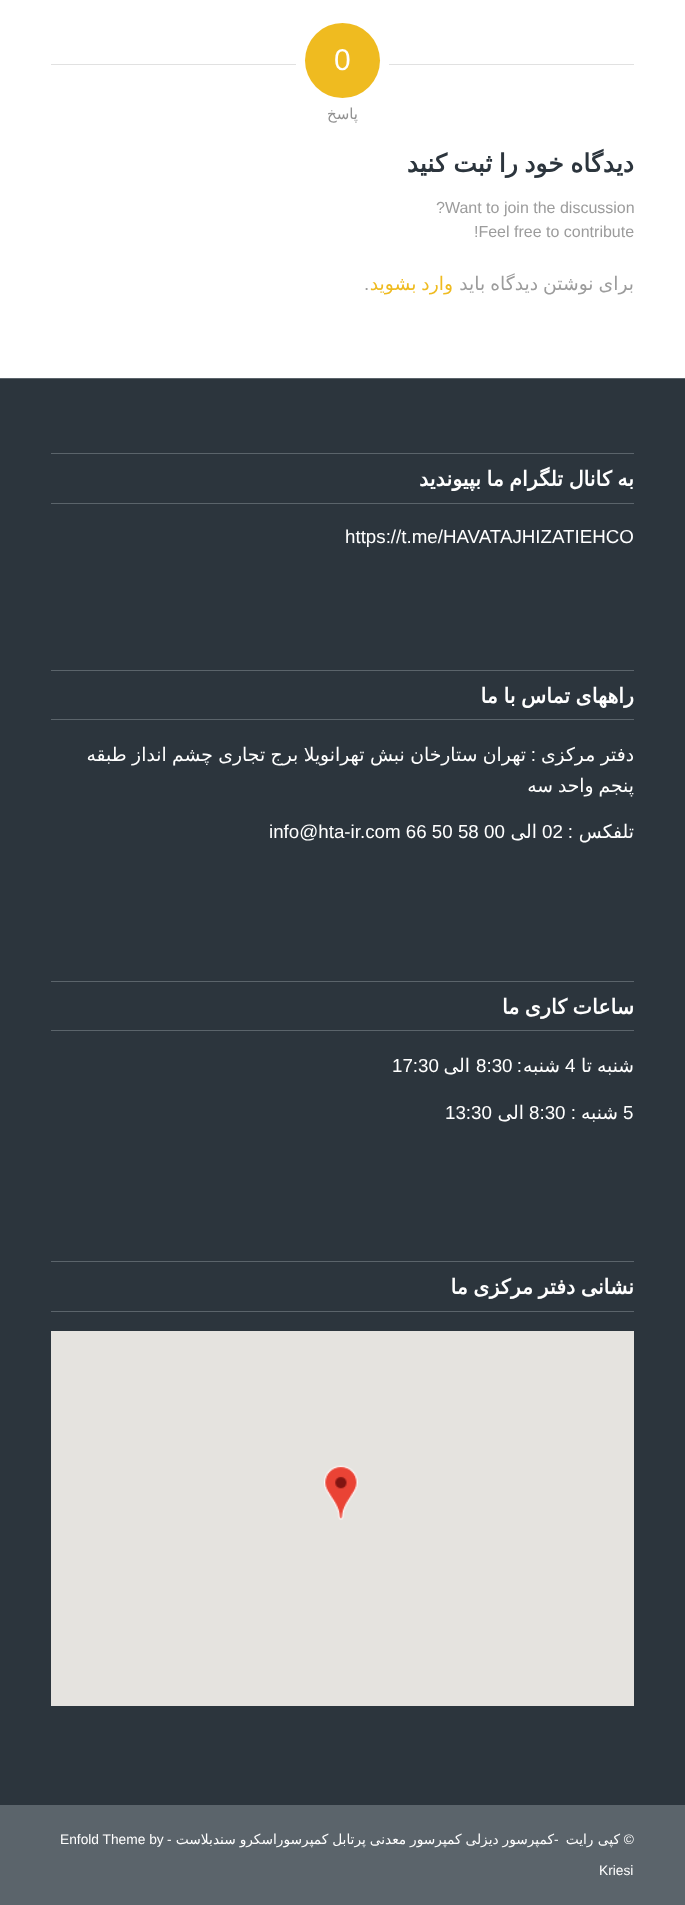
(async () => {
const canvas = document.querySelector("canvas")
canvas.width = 685
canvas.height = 1905
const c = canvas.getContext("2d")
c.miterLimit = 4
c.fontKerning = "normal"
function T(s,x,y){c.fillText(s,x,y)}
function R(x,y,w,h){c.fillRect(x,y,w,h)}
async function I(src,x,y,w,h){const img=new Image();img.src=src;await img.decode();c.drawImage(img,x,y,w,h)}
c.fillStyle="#fff"
R(0,0,685,1905)
c.fillStyle="#e1e1e1"
R(389,64,245,1)
c.fillStyle="#efbb20"
c.beginPath()
c.arc(342.5,60.5,37.5,0,7)
c.fill()
c.font="30px Liberation Sans"
c.fillStyle="#fff"
T("0",334,70)
c.fillStyle="#e1e1e1"
R(51,64,245,1)
c.direction="rtl"
c.font="15px DejaVu Sans"
c.fillStyle="#919191"
T("پاسخ",358,119)
c.wordSpacing="-1.5px"
c.font="bold 25px DejaVu Sans"
c.fillStyle="#2c353d"
T("دیدگاه خود را ثبت کنید",634,172)
c.wordSpacing="0px"
c.direction="ltr"
c.font="16px Liberation Sans"
c.fillStyle="#9c9c9c"
T("?Want to join the discussion",436,213)
T("!Feel free to contribute",474,237)
c.wordSpacing="-1px"
c.direction="rtl"
c.font="18.75px DejaVu Sans"
T("برای نوشتن دیدگاه باید",634,290)
c.fillStyle="#efbb20"
T("وارد بشوید",453,290)
c.wordSpacing="0px"
c.direction="ltr"
c.font="18.75px Liberation Sans"
c.fillStyle="#9c9c9c"
T(".",364,290)
c.fillStyle="#2c353d"
R(0,379,685,1426)
c.fillStyle="#5b646b"
R(0,378,685,1)
R(51,453,583,1)
R(51,503,583,1)
c.wordSpacing="-1px"
c.direction="rtl"
c.font="bold 20.6px DejaVu Sans"
c.fillStyle="#fff"
T("به کانال تلگرام ما بپیوندید",634,486)
c.wordSpacing="0px"
c.direction="ltr"
c.font="18.75px Liberation Sans"
T("https://t.me/HAVATAJHIZATIEHCO",345,543)
c.fillStyle="#5b646b"
R(51,670,583,1)
R(51,719,583,1)
c.wordSpacing="-1px"
c.direction="rtl"
c.font="bold 20.6px DejaVu Sans"
c.fillStyle="#fff"
T("راههای تماس با ما",634,703)
c.wordSpacing="-0.5px"
c.font="18.75px DejaVu Sans"
T("دفتر مرکزی",634,761)
c.wordSpacing="0px"
c.font="18.75px Liberation Sans"
T(":",536,761)
c.wordSpacing="-0.5px"
c.font="18.75px DejaVu Sans"
T("تهران ستارخان نبش تهرانویلا برج تجاری چشم انداز طبقه",526,761)
c.wordSpacing="-1px"
T("پنجم واحد سه",634,792)
c.wordSpacing="0px"
T("تلفکس",634,838)
c.font="18.75px Liberation Sans"
T(":",573,838)
c.direction="ltr"
T("02",542,838)
c.direction="rtl"
c.font="18.75px DejaVu Sans"
T("الی",537,838)
c.direction="ltr"
c.font="18.75px Liberation Sans"
T("info@hta-ir.com 66 50 58 00",269,838)
c.fillStyle="#5b646b"
R(51,981,583,1)
R(51,1030,583,1)
c.wordSpacing="-1px"
c.direction="rtl"
c.font="bold 20.6px DejaVu Sans"
c.fillStyle="#fff"
T("ساعات کاری ما",634,1014)
c.font="18.75px DejaVu Sans"
T("شنبه تا",634,1072)
c.wordSpacing="0px"
c.direction="ltr"
c.font="18.75px Liberation Sans"
T("4",565,1072)
c.direction="rtl"
c.font="18.75px DejaVu Sans"
T("شنبه",560,1072)
c.font="18.75px Liberation Sans"
T(":",522,1072)
c.direction="ltr"
T("8:30",476,1072)
c.direction="rtl"
c.font="18.75px DejaVu Sans"
T("الی",470,1072)
c.direction="ltr"
c.font="18.75px Liberation Sans"
T("17:30",392,1072)
T("5",623,1119)
c.direction="rtl"
c.font="18.75px DejaVu Sans"
T("شنبه",618,1119)
c.font="18.75px Liberation Sans"
T(":",576,1119)
c.direction="ltr"
T("8:30",529,1119)
c.direction="rtl"
c.font="18.75px DejaVu Sans"
T("الی",524,1119)
c.direction="ltr"
c.font="18.75px Liberation Sans"
T("13:30",445,1119)
c.fillStyle="#5b646b"
R(51,1261,583,1)
R(51,1311,583,1)
c.wordSpacing="-1px"
c.direction="rtl"
c.font="bold 20.6px DejaVu Sans"
c.fillStyle="#fff"
T("نشانی دفتر مرکزی ما",634,1294)
c.fillStyle="#e5e3df"
R(51,1331,583,375)
await I("1.png",324,1465,34,55)
c.fillStyle="#5b646b"
R(0,1805,685,100)
c.wordSpacing="0px"
c.font="13.75px Liberation Sans"
c.fillStyle="#fff"
T("©",634,1844)
c.font="13.75px DejaVu Sans"
T("کپی رایت",620,1844)
c.direction="ltr"
c.font="13.75px Liberation Sans"
T("-",554,1844)
c.wordSpacing="-0.5px"
c.direction="rtl"
c.font="13.75px DejaVu Sans"
T("کمپرسور دیزلی کمپرسور معدنی پرتابل کمپرسوراسکرو سندبلاست",554,1844)
c.wordSpacing="0px"
c.direction="ltr"
c.font="13.75px Liberation Sans"
T("-",167,1844)
T("Enfold Theme by",60,1844)
T("Kriesi",599,1875)
})()
